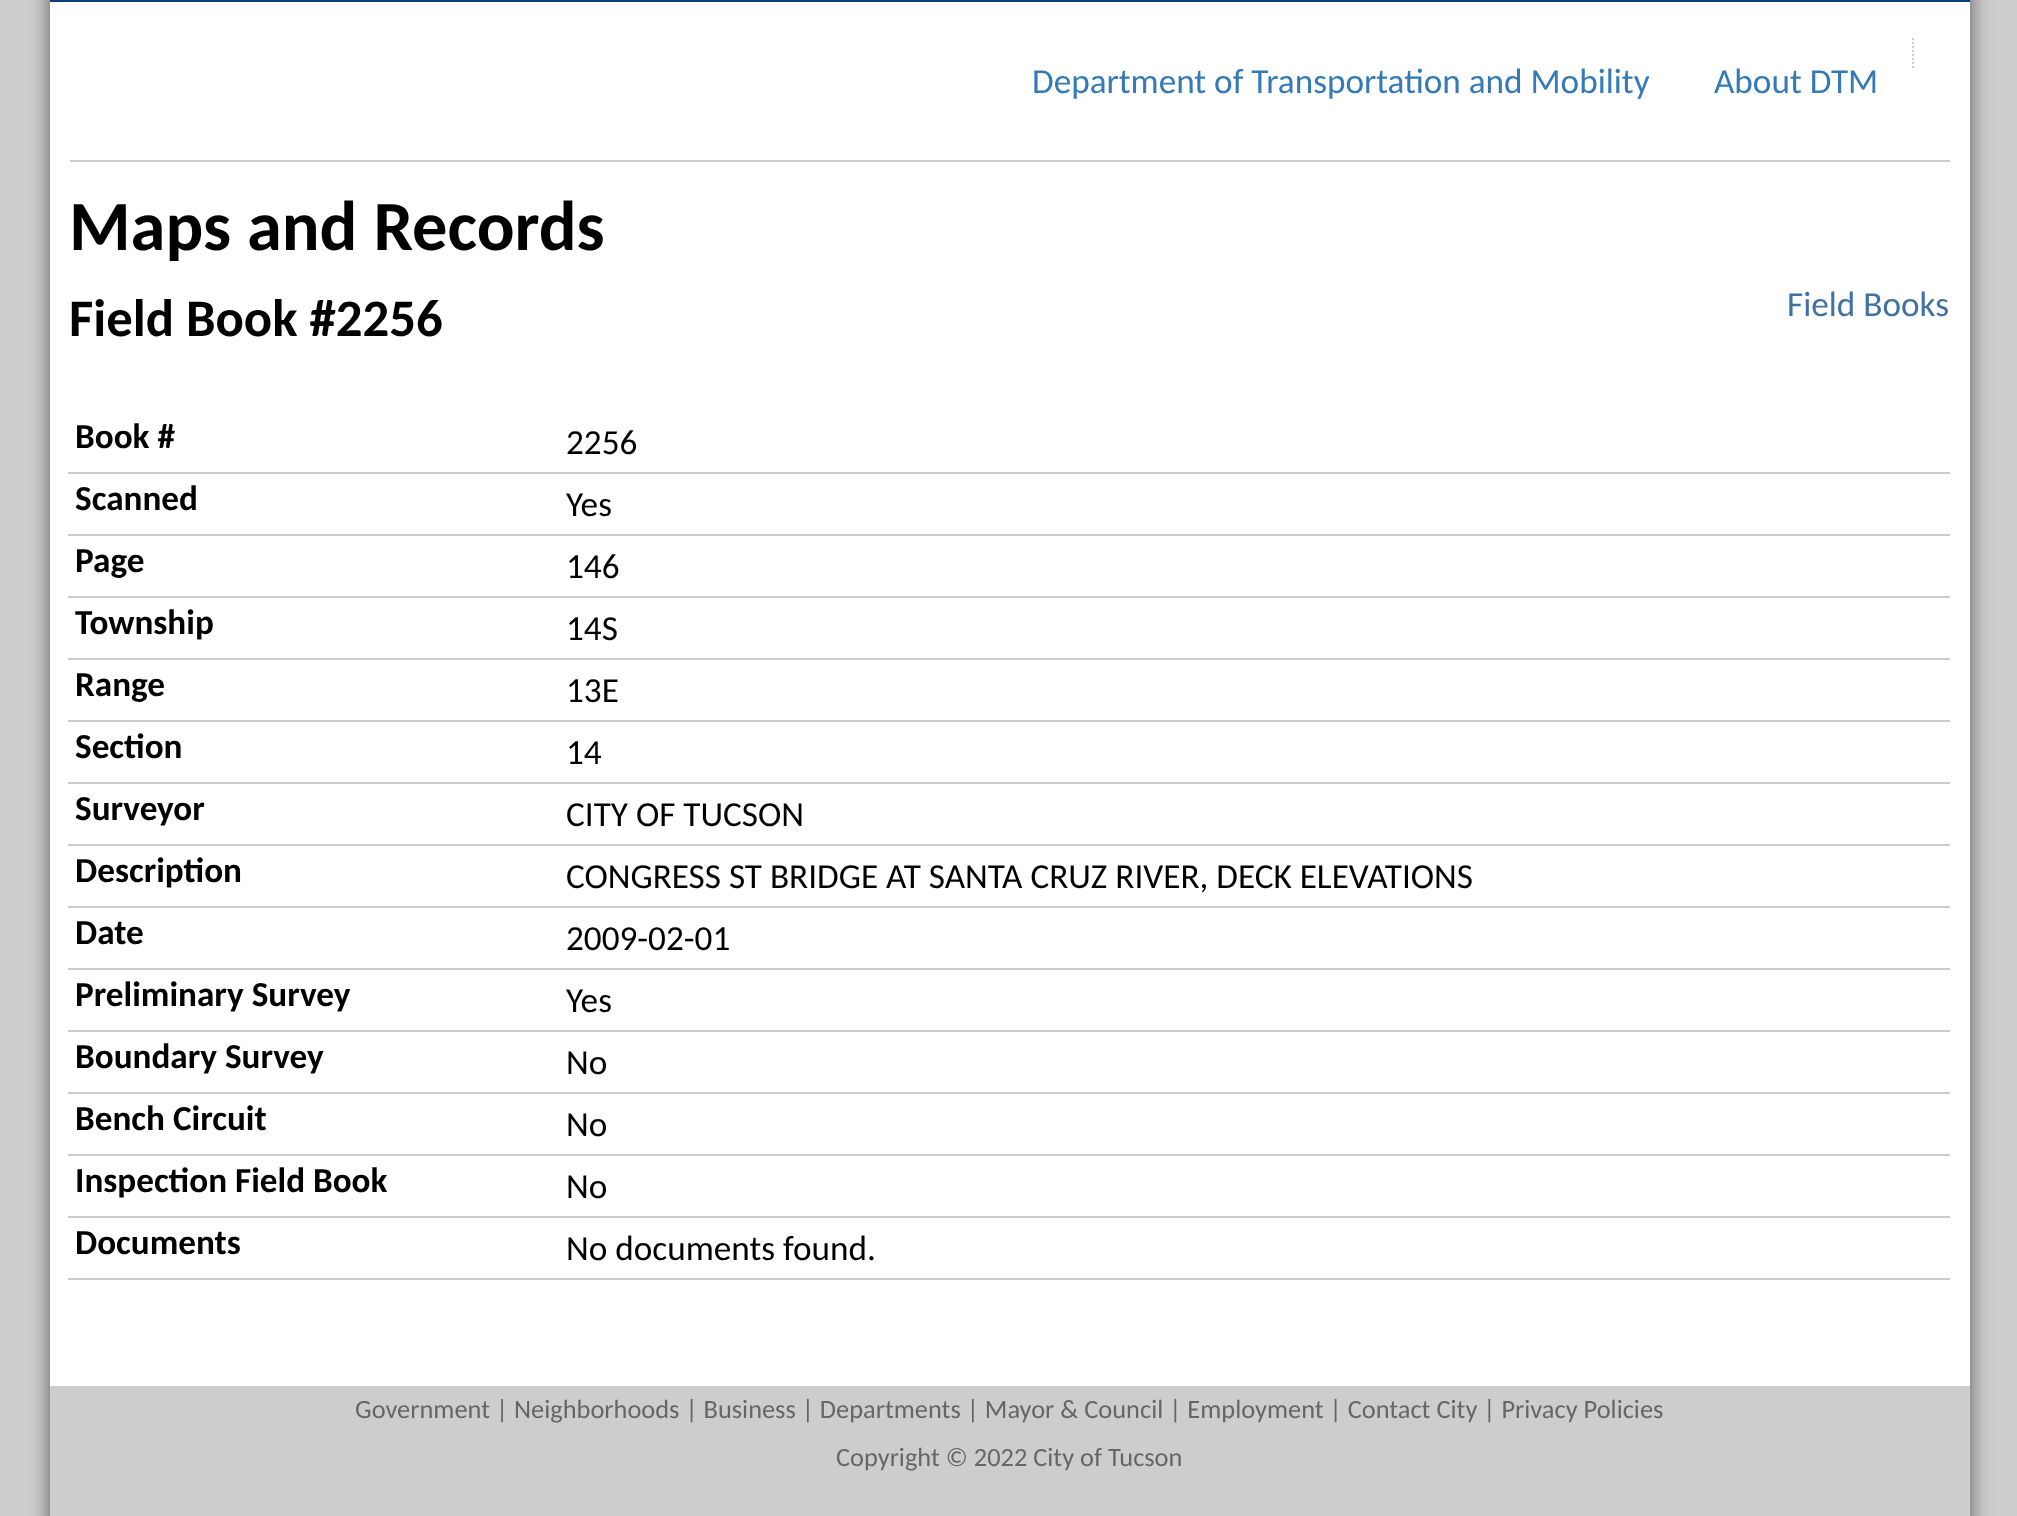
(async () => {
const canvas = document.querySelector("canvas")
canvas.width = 2017
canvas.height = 1516
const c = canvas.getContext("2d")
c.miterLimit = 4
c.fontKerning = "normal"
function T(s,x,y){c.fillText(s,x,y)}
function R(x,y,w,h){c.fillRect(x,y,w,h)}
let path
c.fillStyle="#cdcdcd"
R(0,0,2017,1516)
c.save()
path = new Path2D("M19 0h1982v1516h-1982zm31-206h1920v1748h-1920z")
c.clip(path,"evenodd")
c.fillStyle="#323232bf"
c.filter="blur(10px)"
c.beginPath()
c.rect(50,-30,1920,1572)
c.fill()
c.filter="none"
c.restore()
c.fillStyle="#0d3e77"
R(50,0,1920,2)
c.fillStyle="#fff"
R(50,2,1920,1384)
c.fillStyle="#cdcdcd"
R(70,160,1880,2)
path = new Path2D("M1913 38v30")
c.strokeStyle="#cdcdcd"
c.lineWidth=2
c.setLineDash([2,2])
c.stroke(path)
c.font="35.2px Carlito"
c.fillStyle="#337ab7"
T("Department of Transportation and Mobility",1032,93)
T("About DTM",1714,93)
c.font="bold 70.5px Carlito"
c.fillStyle="#000"
T("Maps and Records",69,250)
c.font="bold 52.75px Carlito"
T("Field Book #2256",69,336)
c.font="35.2px Carlito"
c.fillStyle="#4071a3"
T("Field Books",1787,316)
c.fillStyle="#ccc"
R(68,472,1882,2)
c.font="bold 35.2px Carlito"
c.fillStyle="#000"
T("Book #",75,448)
c.font="35.2px Carlito"
T("2256",566,454)
c.fillStyle="#ccc"
R(68,534,1882,2)
c.font="bold 35.2px Carlito"
c.fillStyle="#000"
T("Scanned",75,510)
c.font="35.2px Carlito"
T("Yes",566,516)
c.fillStyle="#ccc"
R(68,596,1882,2)
c.font="bold 35.2px Carlito"
c.fillStyle="#000"
T("Page",75,572)
c.font="35.2px Carlito"
T("146",566,578)
c.fillStyle="#ccc"
R(68,658,1882,2)
c.font="bold 35.2px Carlito"
c.fillStyle="#000"
T("Township",75,634)
c.font="35.2px Carlito"
T("14S",566,640)
c.fillStyle="#ccc"
R(68,720,1882,2)
c.font="bold 35.2px Carlito"
c.fillStyle="#000"
T("Range",75,696)
c.font="35.2px Carlito"
T("13E",566,702)
c.fillStyle="#ccc"
R(68,782,1882,2)
c.font="bold 35.2px Carlito"
c.fillStyle="#000"
T("Section",75,758)
c.font="35.2px Carlito"
T("14",566,764)
c.fillStyle="#ccc"
R(68,844,1882,2)
c.font="bold 35.2px Carlito"
c.fillStyle="#000"
T("Surveyor",75,820)
c.font="35.2px Carlito"
T("CITY OF TUCSON",566,826)
c.fillStyle="#ccc"
R(68,906,1882,2)
c.font="bold 35.2px Carlito"
c.fillStyle="#000"
T("Description",75,882)
c.font="35.2px Carlito"
T("CONGRESS ST BRIDGE AT SANTA CRUZ RIVER, DECK ELEVATIONS",566,888)
c.fillStyle="#ccc"
R(68,968,1882,2)
c.font="bold 35.2px Carlito"
c.fillStyle="#000"
T("Date",75,944)
c.font="35.2px Carlito"
T("2009-02-01",566,950)
c.fillStyle="#ccc"
R(68,1030,1882,2)
c.font="bold 35.2px Carlito"
c.fillStyle="#000"
T("Preliminary Survey",75,1006)
c.font="35.2px Carlito"
T("Yes",566,1012)
c.fillStyle="#ccc"
R(68,1092,1882,2)
c.font="bold 35.2px Carlito"
c.fillStyle="#000"
T("Boundary Survey",75,1068)
c.font="35.2px Carlito"
T("No",566,1074)
c.fillStyle="#ccc"
R(68,1154,1882,2)
c.font="bold 35.2px Carlito"
c.fillStyle="#000"
T("Bench Circuit",75,1130)
c.font="35.2px Carlito"
T("No",566,1136)
c.fillStyle="#ccc"
R(68,1216,1882,2)
c.font="bold 35.2px Carlito"
c.fillStyle="#000"
T("Inspection Field Book",75,1192)
c.font="35.2px Carlito"
T("No",566,1198)
c.fillStyle="#ccc"
R(68,1278,1882,2)
c.font="bold 35.2px Carlito"
c.fillStyle="#000"
T("Documents",75,1254)
c.font="35.2px Carlito"
T("No documents found.",566,1260)
c.font="26.4px Carlito"
c.fillStyle="#666"
T("Government | Neighborhoods | Business | Departments | Mayor & Council | Employment | Contact City | Privacy Policies",355,1418)
T("Copyright © 2022 City of Tucson",836,1466)
})()
